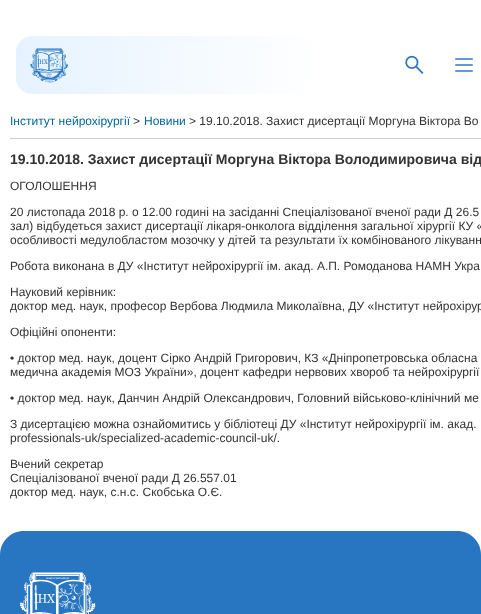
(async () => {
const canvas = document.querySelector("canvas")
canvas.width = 481
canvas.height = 614
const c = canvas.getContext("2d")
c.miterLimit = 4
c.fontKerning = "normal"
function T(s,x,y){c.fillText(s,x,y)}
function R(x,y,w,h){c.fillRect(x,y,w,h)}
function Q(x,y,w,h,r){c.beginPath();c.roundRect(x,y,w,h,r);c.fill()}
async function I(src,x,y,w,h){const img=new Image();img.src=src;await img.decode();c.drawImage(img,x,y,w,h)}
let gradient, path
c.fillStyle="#fff"
R(0,0,481,614)
gradient = c.createLinearGradient(7.9,56,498,73)
gradient.addColorStop(0,"#e5f2ff")
gradient.addColorStop(.64,"#fff")
c.fillStyle = gradient
Q(16,36,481,58,16)
await I("1.png",30,48,38,35)
await I("2.png",405,55,19,19)
await I("3.png",455,58,18,14)
c.fillStyle="#ccc"
R(10,138,471,1)
c.font="12px Liberation Sans"
c.fillStyle="#069"
T("Інститут нейрохірургії",10,125)
c.fillStyle="#333"
T(">",133,125)
c.fillStyle="#069"
T("Новини",144,125)
c.fillStyle="#333"
T("> 19.10.2018. Захист дисертації Моргуна Віктора Во",189,125)
c.font="bold 14px Liberation Sans"
T("19.10.2018. Захист дисертації Моргуна Віктора Володимировича від",10,164)
c.font="12px Liberation Sans"
T("ОГОЛОШЕННЯ",10,190)
T("20 листопада 2018 р. о 12.00 годині на засіданні Спеціалізованої вченої ради Д 26.5",10,216)
T("зал) відбудеться захист дисертації лікаря-онколога відділення загальної хірургії КУ «",10,230)
T("особливості медулобластом мозочку у дітей та результати їх комбінованого лікуванн",10,244)
T("Робота виконана в ДУ «Інститут нейрохірургії ім. акад. А.П. Ромоданова НАМН Укра",10,270)
T("Науковий керівник:",10,296)
T("доктор мед. наук, професор Вербова Людмила Миколаївна, ДУ «Інститут нейрохірур",10,310)
T("Офіційні опоненти:",10,336)
T("• доктор мед. наук, доцент Сірко Андрій Григорович, КЗ «Дніпропетровська обласна",10,362)
T("медична академія МОЗ України», доцент кафедри нервових хвороб та нейрохірургії",10,376)
T("• доктор мед. наук, Данчин Андрій Олександрович, Головний військово-клінічний ме",10,402)
T("З дисертацією можна ознайомитись у бібліотеці ДУ «Інститут нейрохірургії ім. акад.",10,428)
T("professionals-uk/specialized-academic-council-uk/.",10,442)
T("Вчений секретар",10,468)
T("Спеціалізованої вченої ради Д 26.557.01",10,482)
T("доктор мед. наук, с.н.с. Скобська О.Є.",10,496)
c.fillStyle="#2876c1"
path = new Path2D("M24 531h433c13.5 0 24 10.5 24 24v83h-481v-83c0-13.5 10.5-24 24-24z")
c.fill(path)
await I("4.png",20,572,76,42)
})()
